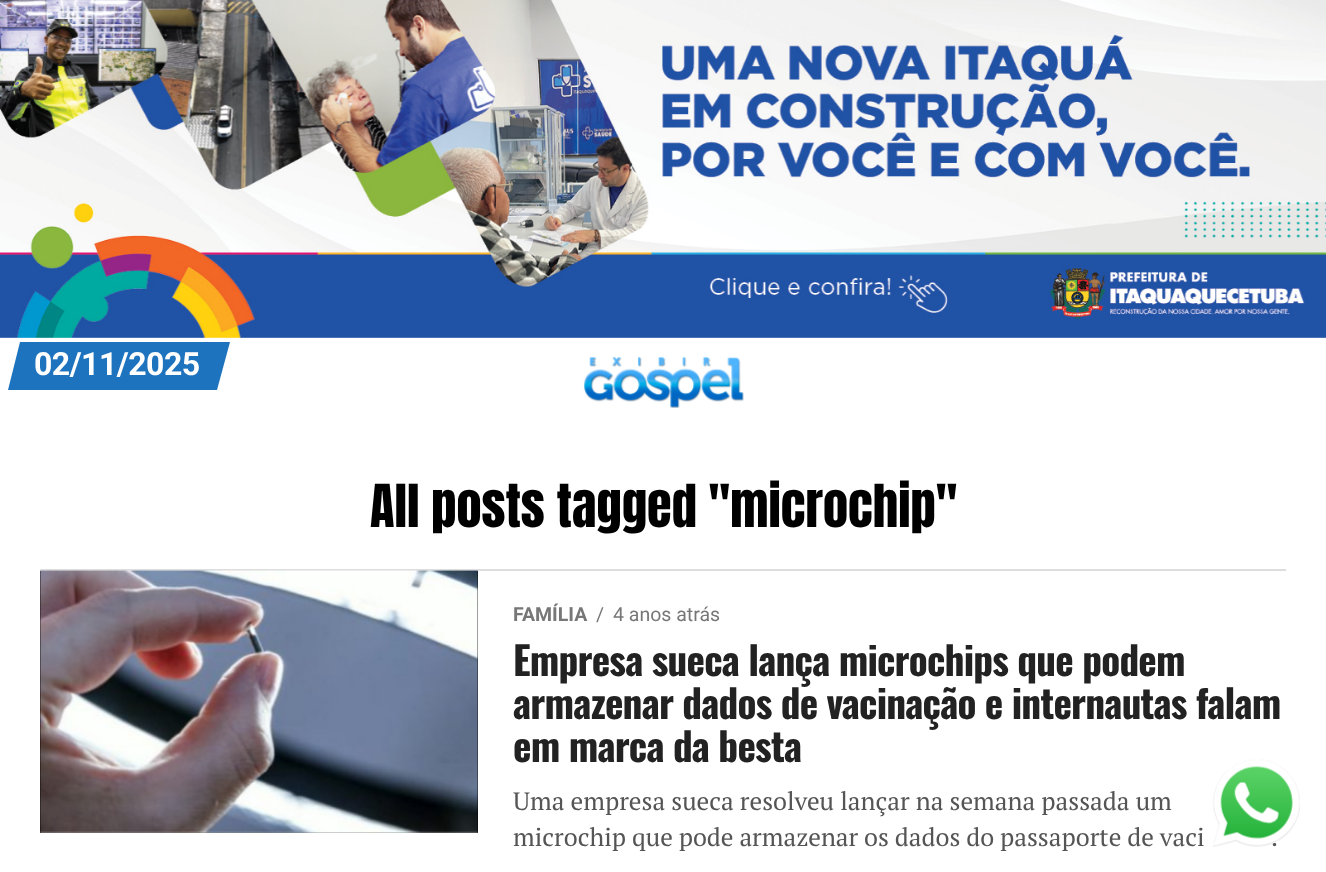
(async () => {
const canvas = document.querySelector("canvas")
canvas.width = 1326
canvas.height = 872
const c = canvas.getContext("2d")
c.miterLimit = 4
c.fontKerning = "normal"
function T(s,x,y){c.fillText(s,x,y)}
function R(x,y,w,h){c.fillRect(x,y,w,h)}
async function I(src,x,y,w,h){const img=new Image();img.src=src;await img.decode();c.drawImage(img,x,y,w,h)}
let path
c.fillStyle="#fff"
R(0,0,1326,872)
await I("1.png",0,0,1326,338)
c.fillStyle="#1e73be"
path = new Path2D("M20 342h210l-13 48h-209z")
c.fill(path)
c.letterSpacing="-0.5px"
c.font="bold 32px Roboto"
c.fillStyle="#fff"
T("02/11/2025",34,375)
await I("2.png",583,357,161,51)
c.letterSpacing="0px"
c.font="50.4px Anton"
c.fillStyle="#000"
T("All posts tagged \"microchip\"",370,527)
c.fillStyle="#ddd"
R(40,569,1246,2)
c.fillStyle="#000"
R(40,571,438,262)
await I("3.png",40,570,438,263)
c.font="bold 19.5px Roboto"
c.fillStyle="#777"
T("FAMÍLIA",513,621)
c.font="19.5px Roboto"
T("/",596,621)
T("4 anos atrás",613,621)
c.letterSpacing="-0.8px"
c.font="bold 39.25px Oswald"
c.fillStyle="#222"
T("Empresa sueca lança microchips que podem",513,676)
T("armazenar dados de vacinação e internautas falam",513,719)
T("em marca da besta",513,762)
c.letterSpacing="0px"
c.font="25.2px PT Serif"
c.fillStyle="#555"
T("Uma empresa sueca resolveu lançar na semana passada um",513,810)
c.wordSpacing="-0.25px"
T("microchip que pode armazenar os dados do passaporte de vaci",513,846)
T(".",1271,846)
await I("4.png",1212,759,88,88)
})()
